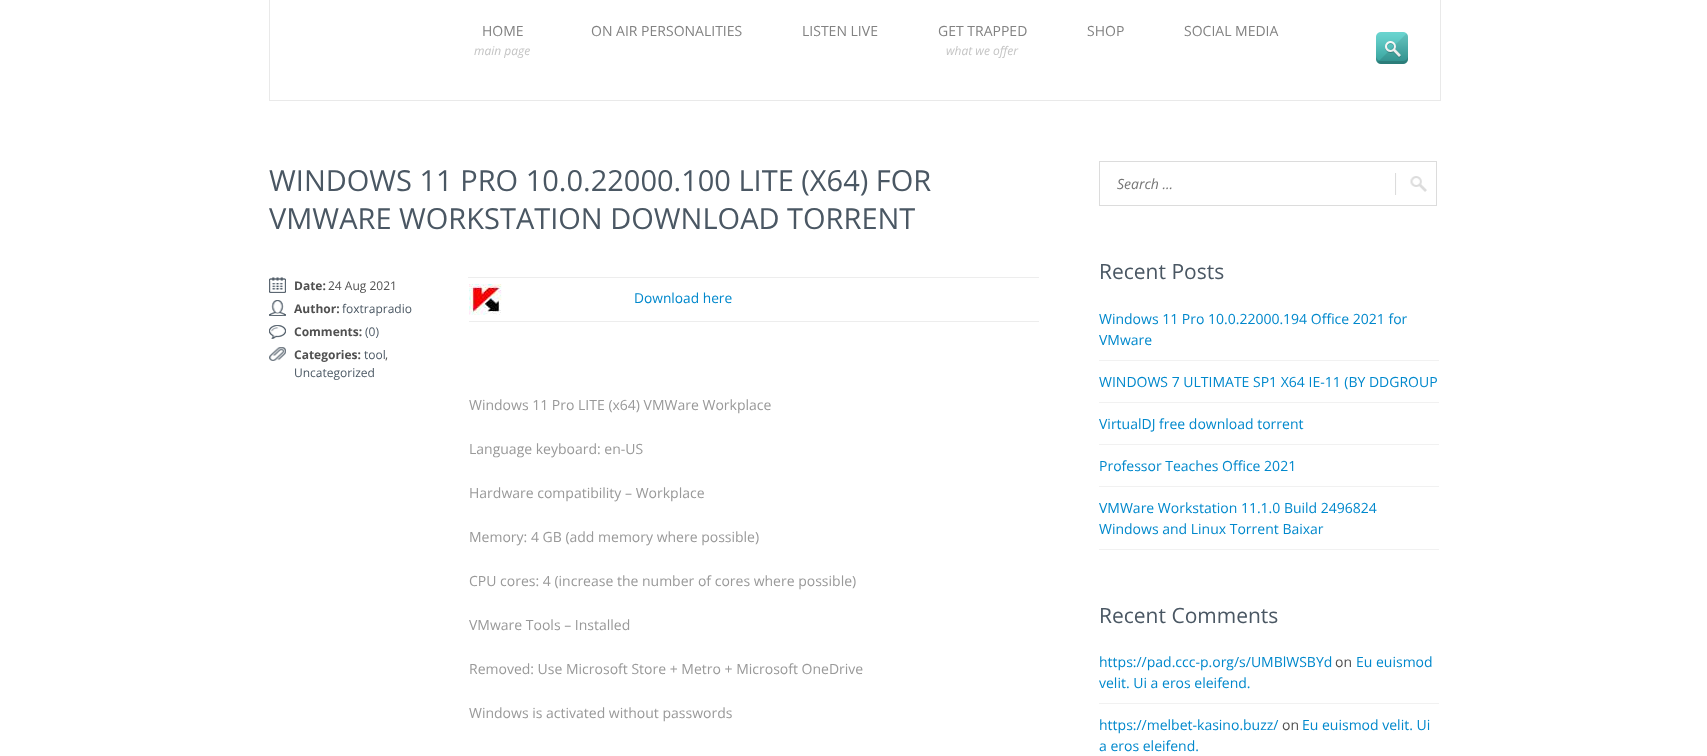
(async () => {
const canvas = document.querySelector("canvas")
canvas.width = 1707
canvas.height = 756
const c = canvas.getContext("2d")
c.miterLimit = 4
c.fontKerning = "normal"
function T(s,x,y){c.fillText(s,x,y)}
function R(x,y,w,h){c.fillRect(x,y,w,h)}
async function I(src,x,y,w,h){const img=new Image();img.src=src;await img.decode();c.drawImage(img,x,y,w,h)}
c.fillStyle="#fff"
R(0,0,1707,756)
c.fillStyle="#e9e9e9"
R(1440,0,1,101)
R(269,100,1172,1)
R(269,0,1,101)
c.font="14px Open Sans"
c.fillStyle="#828282"
T("HOME",482,36)
c.font="italic 12px Open Sans"
c.fillStyle="#c4c4c4"
T("main page",474,55)
c.font="14px Open Sans"
c.fillStyle="#828282"
T("ON AIR PERSONALITIES",591,36)
T("LISTEN LIVE",802,36)
T("GET TRAPPED",938,36)
c.font="italic 12px Open Sans"
c.fillStyle="#c4c4c4"
T("what we offer",946,55)
c.font="14px Open Sans"
c.fillStyle="#828282"
T("SHOP",1087,36)
T("SOCIAL MEDIA",1184,36)
await I("1.png",1376,32,32,32)
c.font="29px Open Sans"
c.fillStyle="#4a5763"
T("WINDOWS 11 PRO 10.0.22000.100 LITE (X64) FOR",269,191)
T("VMWARE WORKSTATION DOWNLOAD TORRENT",269,229)
await I("2.png",269,277,17,16)
c.font="bold 12px Open Sans"
c.fillStyle="#505050"
T("Date:",294,290)
c.font="12px Open Sans"
T("24 Aug 2021",328,290)
await I("3.png",269,300,17,16)
c.font="bold 12px Open Sans"
T("Author:",294,313)
c.font="12px Open Sans"
c.fillStyle="#4a5763"
T("foxtrapradio",342,313)
await I("4.png",269,325,17,14)
c.font="bold 12px Open Sans"
c.fillStyle="#505050"
T("Comments:",294,336)
c.font="12px Open Sans"
c.fillStyle="#4a5763"
T("(0)",365,336)
await I("5.png",269,347,17,14)
c.font="bold 12px Open Sans"
c.fillStyle="#505050"
T("Categories:",294,359)
c.font="12px Open Sans"
c.fillStyle="#4a5763"
T("tool",364,359)
c.fillStyle="#505050"
T(",",385,359)
c.fillStyle="#4a5763"
T("Uncategorized",294,377)
c.fillStyle="#ededed"
R(469,321,570,1)
await I("6.png",469,284,33,31)
R(468,277,571,1)
c.font="13.75px Open Sans"
c.fillStyle="#08c"
T("Download here",634,303)
c.font="14px Open Sans"
c.fillStyle="#999"
T("Windows 11 Pro LITE (x64) VMWare Workplace",469,410)
T("Language keyboard: en-US",469,454)
T("Hardware compatibility – Workplace",469,498)
T("Memory: 4 GB (add memory where possible)",469,542)
T("CPU cores: 4 (increase the number of cores where possible)",469,586)
T("VMware Tools – Installed",469,630)
T("Removed: Use Microsoft Store + Metro + Microsoft OneDrive",469,674)
T("Windows is activated without passwords",469,718)
c.strokeStyle="#dcdcdc"
c.strokeRect(1099.5,161.5,337,44)
c.font="italic 14px Open Sans"
c.fillStyle="#757575"
T("Search ...",1117,189)
await I("7.png",1395,173,32,22)
c.font="21px Open Sans"
c.fillStyle="#4a5763"
T("Recent Posts",1099,279)
c.fillStyle="#f1f1f1"
R(1099,360,340,1)
c.font="14px Open Sans"
c.fillStyle="#08c"
T("Windows 11 Pro 10.0.22000.194 Office 2021 for",1099,324)
T("VMware",1099,345)
c.fillStyle="#f1f1f1"
R(1099,402,340,1)
c.fillStyle="#08c"
T("WINDOWS 7 ULTIMATE SP1 X64 IE-11 (BY DDGROUP",1099,387)
c.fillStyle="#f1f1f1"
R(1099,444,340,1)
c.fillStyle="#08c"
T("VirtualDJ free download torrent",1099,429)
c.fillStyle="#f1f1f1"
R(1099,486,340,1)
c.fillStyle="#08c"
T("Professor Teaches Office 2021",1099,471)
c.fillStyle="#f1f1f1"
R(1099,549,340,1)
c.fillStyle="#08c"
T("VMWare Workstation 11.1.0 Build 2496824",1099,513)
T("Windows and Linux Torrent Baixar",1099,534)
c.font="21px Open Sans"
c.fillStyle="#4a5763"
T("Recent Comments",1099,623)
c.fillStyle="#f1f1f1"
R(1099,703,340,1)
c.font="14px Open Sans"
c.fillStyle="#08c"
T("https://pad.ccc-p.org/s/UMBlWSBYd",1099,667)
c.fillStyle="#505050"
T("on",1335,667)
c.fillStyle="#08c"
T("Eu euismod",1356,667)
T("velit. Ui a eros eleifend.",1099,688)
T("https://melbet-kasino.buzz/",1099,730)
c.fillStyle="#505050"
T("on",1282,730)
c.fillStyle="#08c"
T("Eu euismod velit. Ui",1302,730)
T("a eros eleifend.",1099,751)
})()
